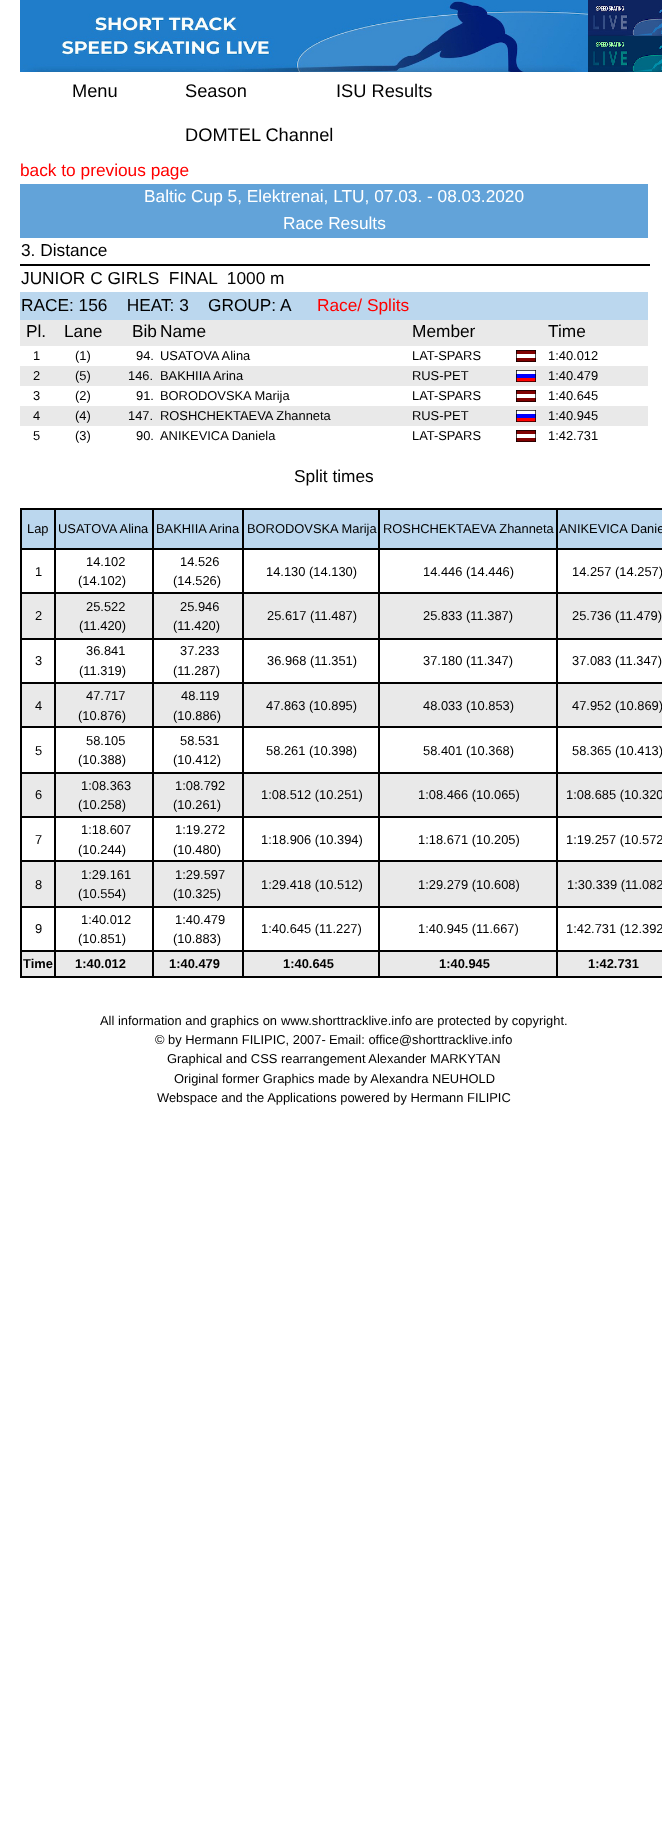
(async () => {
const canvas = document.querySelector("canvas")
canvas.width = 662
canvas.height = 1836
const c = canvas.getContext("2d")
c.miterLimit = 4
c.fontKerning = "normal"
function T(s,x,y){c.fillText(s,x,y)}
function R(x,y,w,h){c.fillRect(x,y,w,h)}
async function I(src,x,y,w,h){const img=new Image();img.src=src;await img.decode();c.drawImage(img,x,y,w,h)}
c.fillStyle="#fff"
R(0,0,662,1836)
await I("1.png",20,0,568,72)
await I("2.png",588,0,74,36)
await I("3.png",588,36,74,36)
c.font="18.25px Liberation Sans"
c.fillStyle="#000"
T("Menu",72,97)
T("Season",185,97)
T("ISU Results",336,97)
T("DOMTEL Channel",185,141)
c.font="17.3px Liberation Sans"
c.fillStyle="#f00"
T("back to previous page",20,176)
c.fillStyle="#62a3d9"
R(20,184,628,54)
c.fillStyle="#fff"
T("Baltic Cup 5, Elektrenai, LTU, 07.03. - 08.03.2020",144,202)
T("Race Results",283,229)
c.fillStyle="#000"
R(20,264,630,2)
T("3. Distance",21,256)
T("JUNIOR C GIRLS  FINAL  1000 m",21,284)
c.fillStyle="#bbd7ee"
R(20,292,628,28)
c.fillStyle="#000"
T("RACE: 156    HEAT: 3    GROUP: A",21,311)
c.fillStyle="#f00"
T("Race/ Splits",317,311)
c.fillStyle="#e9e9e9"
R(20,320,628,26)
c.fillStyle="#000"
T("Pl.",26,337)
T("Lane",64,337)
T("Bib",132,337)
T("Name",160,337)
T("Member",412,337)
T("Time",548,337)
c.font="12.9px Liberation Sans"
T("1",33,360)
T("(1)",75,360)
T("94.",136,360)
T("USATOVA Alina",160,360)
T("LAT-SPARS",412,360)
await I("4.png",516,350,20,12)
T("1:40.012",548,360)
c.fillStyle="#e9e9e9"
R(20,366,628,20)
c.fillStyle="#000"
T("2",33,380)
T("(5)",75,380)
T("146.",128,380)
T("BAKHIIA Arina",160,380)
T("RUS-PET",412,380)
await I("5.png",516,370,20,12)
T("1:40.479",548,380)
T("3",33,400)
T("(2)",75,400)
T("91.",136,400)
T("BORODOVSKA Marija",160,400)
T("LAT-SPARS",412,400)
await I("4.png",516,390,20,12)
T("1:40.645",548,400)
c.fillStyle="#e9e9e9"
R(20,406,628,20)
c.fillStyle="#000"
T("4",33,420)
T("(4)",75,420)
T("147.",128,420)
T("ROSHCHEKTAEVA Zhanneta",160,420)
T("RUS-PET",412,420)
await I("5.png",516,410,20,12)
T("1:40.945",548,420)
T("5",33,440)
T("(3)",75,440)
T("90.",136,440)
T("ANIKEVICA Daniela",160,440)
T("LAT-SPARS",412,440)
await I("4.png",516,430,20,12)
T("1:42.731",548,440)
c.font="17.3px Liberation Sans"
T("Split times",294,482)
c.fillStyle="#bbd7ee"
R(22,510,640,38)
c.fillStyle="#000"
R(556,508,106,2)
R(556,548,106,2)
R(556,592,106,2)
c.fillStyle="#e9e9e9"
R(22,594,640,44)
c.fillStyle="#000"
R(556,638,106,2)
R(556,682,106,2)
c.fillStyle="#e9e9e9"
R(22,684,640,42)
c.fillStyle="#000"
R(556,726,106,2)
R(556,772,106,2)
c.fillStyle="#e9e9e9"
R(22,774,640,42)
c.fillStyle="#000"
R(556,816,106,2)
R(556,860,106,2)
c.fillStyle="#e9e9e9"
R(22,862,640,44)
c.fillStyle="#000"
R(556,906,106,2)
R(556,950,106,2)
c.fillStyle="#e9e9e9"
R(22,952,640,24)
c.fillStyle="#000"
R(556,976,106,2)
R(556,950,2,28)
R(378,950,180,2)
R(556,906,2,46)
R(378,906,180,2)
R(556,860,2,48)
R(378,860,180,2)
R(556,816,2,46)
R(378,816,180,2)
R(556,772,2,46)
R(378,772,180,2)
R(556,726,2,48)
R(378,726,180,2)
R(556,682,2,46)
R(378,682,180,2)
R(556,638,2,46)
R(378,638,180,2)
R(556,592,2,48)
R(378,592,180,2)
R(556,548,2,46)
R(378,548,180,2)
R(556,508,2,42)
R(378,508,180,2)
R(378,976,180,2)
R(378,950,2,28)
R(242,950,138,2)
R(378,906,2,46)
R(242,906,138,2)
R(378,860,2,48)
R(242,860,138,2)
R(378,816,2,46)
R(242,816,138,2)
R(378,772,2,46)
R(242,772,138,2)
R(378,726,2,48)
R(242,726,138,2)
R(378,682,2,46)
R(242,682,138,2)
R(378,638,2,46)
R(242,638,138,2)
R(378,592,2,48)
R(242,592,138,2)
R(378,548,2,46)
R(242,548,138,2)
R(378,508,2,42)
R(242,508,138,2)
R(242,976,138,2)
R(242,950,2,28)
R(152,950,92,2)
R(242,906,2,46)
R(152,906,92,2)
R(242,860,2,48)
R(152,860,92,2)
R(242,816,2,46)
R(152,816,92,2)
R(242,772,2,46)
R(152,772,92,2)
R(242,726,2,48)
R(152,726,92,2)
R(242,682,2,46)
R(152,682,92,2)
R(242,638,2,46)
R(152,638,92,2)
R(242,592,2,48)
R(152,592,92,2)
R(242,548,2,46)
R(152,548,92,2)
R(242,508,2,42)
R(152,508,92,2)
R(152,976,92,2)
R(152,950,2,28)
R(54,950,100,2)
R(152,906,2,46)
R(54,906,100,2)
R(152,860,2,48)
R(54,860,100,2)
R(152,816,2,46)
R(54,816,100,2)
R(152,772,2,46)
R(54,772,100,2)
R(152,726,2,48)
R(54,726,100,2)
R(152,682,2,46)
R(54,682,100,2)
R(152,638,2,46)
R(54,638,100,2)
R(152,592,2,48)
R(54,592,100,2)
R(152,548,2,46)
R(54,548,100,2)
R(152,508,2,42)
R(54,508,100,2)
R(54,976,100,2)
R(54,950,2,28)
R(20,950,36,2)
R(54,906,2,46)
R(20,906,36,2)
R(54,860,2,48)
R(20,860,36,2)
R(54,816,2,46)
R(20,816,36,2)
R(54,772,2,46)
R(20,772,36,2)
R(54,726,2,48)
R(20,726,36,2)
R(54,682,2,46)
R(20,682,36,2)
R(54,638,2,46)
R(20,638,36,2)
R(54,592,2,48)
R(20,592,36,2)
R(54,548,2,46)
R(20,548,36,2)
R(54,508,2,42)
R(20,508,36,2)
R(20,976,36,2)
R(20,950,2,28)
R(20,906,2,46)
R(20,860,2,48)
R(20,816,2,46)
R(20,772,2,46)
R(20,726,2,48)
R(20,682,2,46)
R(20,638,2,46)
R(20,592,2,48)
R(20,548,2,46)
R(20,508,2,42)
c.font="12.9px Liberation Sans"
T("Lap",27,533)
T("USATOVA Alina",58,533)
T("BAKHIIA Arina",156,533)
T("BORODOVSKA Marija",247,533)
T("ROSHCHEKTAEVA Zhanneta",383,533)
T("ANIKEVICA Danie",559,533)
T("1",35,576)
T("14.102",86,566)
T("(14.102)",78,585)
T("14.526",180,566)
T("(14.526)",173,585)
T("14.130 (14.130)",266,576)
T("14.446 (14.446)",423,576)
T("14.257 (14.257)",572,576)
T("2",35,620)
T("25.522",86,611)
T("(11.420)",79,630)
T("25.946",180,611)
T("(11.420)",173,630)
T("25.617 (11.487)",267,620)
T("25.833 (11.387)",423,620)
T("25.736 (11.479)",572,620)
T("3",35,665)
T("36.841",86,655)
T("(11.319)",79,675)
T("37.233",180,655)
T("(11.287)",173,675)
T("36.968 (11.351)",267,665)
T("37.180 (11.347)",423,665)
T("37.083 (11.347)",572,665)
T("4",35,710)
T("47.717",86,700)
T("(10.876)",78,720)
T("48.119",181,700)
T("(10.886)",173,720)
T("47.863 (10.895)",266,710)
T("48.033 (10.853)",423,710)
T("47.952 (10.869)",572,710)
T("5",35,755)
T("58.105",86,745)
T("(10.388)",78,764)
T("58.531",180,745)
T("(10.412)",173,764)
T("58.261 (10.398)",266,755)
T("58.401 (10.368)",423,755)
T("58.365 (10.413)",572,755)
T("6",35,799)
T("1:08.363",81,790)
T("(10.258)",78,809)
T("1:08.792",175,790)
T("(10.261)",173,809)
T("1:08.512 (10.251)",261,799)
T("1:08.466 (10.065)",418,799)
T("1:08.685 (10.320",566,799)
T("7",35,844)
T("1:18.607",81,834)
T("(10.244)",78,854)
T("1:19.272",175,834)
T("(10.480)",173,854)
T("1:18.906 (10.394)",261,844)
T("1:18.671 (10.205)",418,844)
T("1:19.257 (10.572",566,844)
T("8",35,889)
T("1:29.161",81,879)
T("(10.554)",78,898)
T("1:29.597",175,879)
T("(10.325)",173,898)
T("1:29.418 (10.512)",261,889)
T("1:29.279 (10.608)",418,889)
T("1:30.339 (11.082",567,889)
T("9",35,933)
T("1:40.012",81,924)
T("(10.851)",78,943)
T("1:40.479",175,924)
T("(10.883)",173,943)
T("1:40.645 (11.227)",261,933)
T("1:40.945 (11.667)",418,933)
T("1:42.731 (12.392",566,933)
c.font="bold 12.9px Liberation Sans"
T("Time",23,968)
T("1:40.012",75,968)
T("1:40.479",169,968)
T("1:40.645",283,968)
T("1:40.945",439,968)
T("1:42.731",588,968)
c.font="12.9px Liberation Sans"
T("All information and graphics on",100,1025)
T("www.shorttracklive.info",281,1025)
T("are protected by copyright.",415,1025)
T("© by Hermann FILIPIC, 2007-",155,1044)
T("Email: office@shorttracklive.info",329,1044)
T("Graphical and CSS rearrangement Alexander MARKYTAN",167,1063)
T("Original former Graphics made by Alexandra NEUHOLD",174,1083)
T("Webspace and the Applications powered by Hermann FILIPIC",157,1102)
})()
